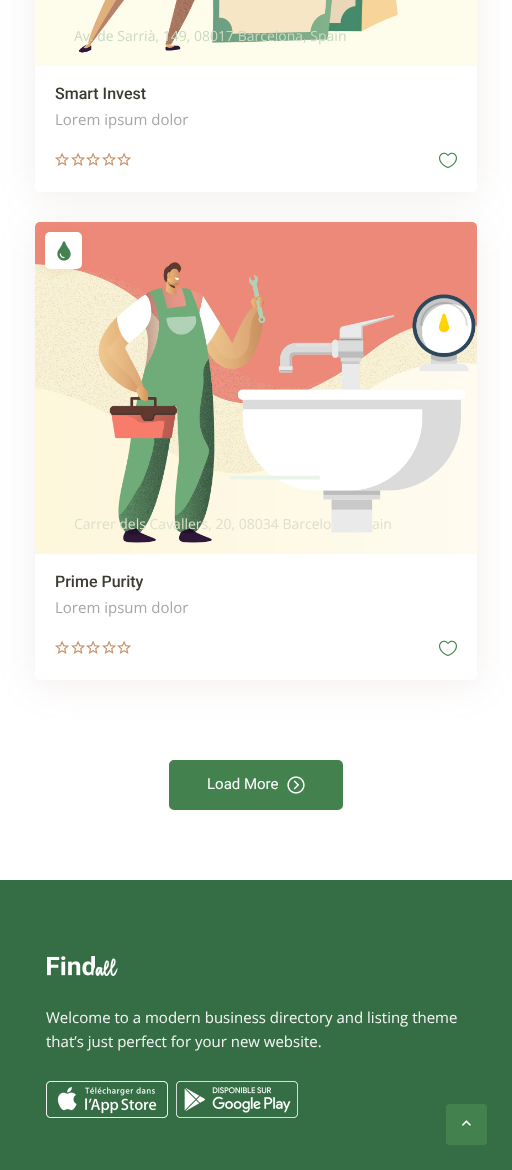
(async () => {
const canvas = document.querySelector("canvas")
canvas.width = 512
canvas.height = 1170
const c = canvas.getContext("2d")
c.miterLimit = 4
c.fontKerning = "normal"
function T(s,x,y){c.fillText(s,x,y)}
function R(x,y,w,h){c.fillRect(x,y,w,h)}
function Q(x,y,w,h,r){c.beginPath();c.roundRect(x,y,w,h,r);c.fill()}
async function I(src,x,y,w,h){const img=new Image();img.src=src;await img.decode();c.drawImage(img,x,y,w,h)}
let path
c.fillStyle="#fff"
R(0,0,512,1170)
c.save()
path = new Path2D("M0 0h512v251h-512zm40-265h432c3 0 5 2 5 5v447c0 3-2 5-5 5h-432c-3 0-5-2-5-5v-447c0-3 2-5 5-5z")
c.clip(path,"evenodd")
c.fillStyle="#9e7f671f"
c.filter="blur(17.5px)"
c.beginPath()
c.roundRect(35,-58,442,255,5)
c.fill()
c.filter="none"
c.restore()
await I("1.png",35,0,442,66)
c.font="14px Open Sans"
c.fillStyle="#cad9c1"
T("Av. de Sarrià, 149, 08017 Barcelona, Spain",74,41)
c.font="500 16px Roboto"
c.fillStyle="#3c3a32"
T("Smart Invest",55,99)
c.font="15px Open Sans"
c.fillStyle="#a6a6a6"
T("Lorem ipsum dolor",55,125)
await I("2.png",55,152,14,14)
await I("2.png",71,152,14,14)
await I("2.png",86,152,14,14)
await I("2.png",102,152,14,14)
await I("2.png",117,152,14,14)
await I("3.png",439,152,18,17)
c.save()
path = new Path2D("M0 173h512v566h-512zm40 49h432c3 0 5 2 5 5v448c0 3-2 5-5 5h-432c-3 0-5-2-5-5v-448c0-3 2-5 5-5z")
c.clip(path,"evenodd")
c.fillStyle="#9e7f671f"
c.filter="blur(17.5px)"
c.beginPath()
c.roundRect(35,227,442,458,5)
c.fill()
c.filter="none"
c.restore()
await I("5.png",35,222,442,332)
c.fillStyle="#ba56091a"
c.filter="blur(5px)"
c.beginPath()
c.roundRect(44,233,37,37,5)
c.fill()
c.filter="none"
c.fillStyle="#fff"
Q(45,232,37,37,5)
await I("4.png",57,241,14,20)
c.font="14px Open Sans"
c.fillStyle="#dce0cc"
T("Carrer dels Cavallers, 20, 08034 Barcelo",74,529)
T("ain",372,529)
c.font="500 16px Roboto"
c.fillStyle="#3c3a32"
T("Prime Purity",55,587)
c.font="15px Open Sans"
c.fillStyle="#a6a6a6"
T("Lorem ipsum dolor",55,613)
await I("2.png",55,640,14,14)
await I("2.png",71,640,14,14)
await I("2.png",86,640,14,14)
await I("2.png",102,640,14,14)
await I("2.png",117,640,14,14)
await I("3.png",439,640,18,17)
c.fillStyle="#43824f"
c.beginPath()
c.roundRect(170,761,172,48,4)
c.fill()
c.strokeStyle="#43824f"
c.lineWidth=2
c.stroke()
c.font="15px Roboto"
c.fillStyle="#fff"
T("Load More",207,789)
await I("6.png",287,776,18,18)
c.fillStyle="#356e44"
R(0,880,512,290)
await I("7.png",47,956,71,20)
c.font="15px Open Sans"
c.fillStyle="#f6f6f6"
T("Welcome to a modern business directory and listing theme",46,1023)
T("that’s just perfect for your new website.",46,1047)
await I("8.png",46,1081,122,37)
await I("9.png",176,1081,122,37)
c.fillStyle="#43824f"
c.beginPath()
c.roundRect(446.5,1104.5,40,40,2.5)
c.fill()
c.lineWidth=1
c.stroke()
await I("10.png",462,1120,9,6)
})()
